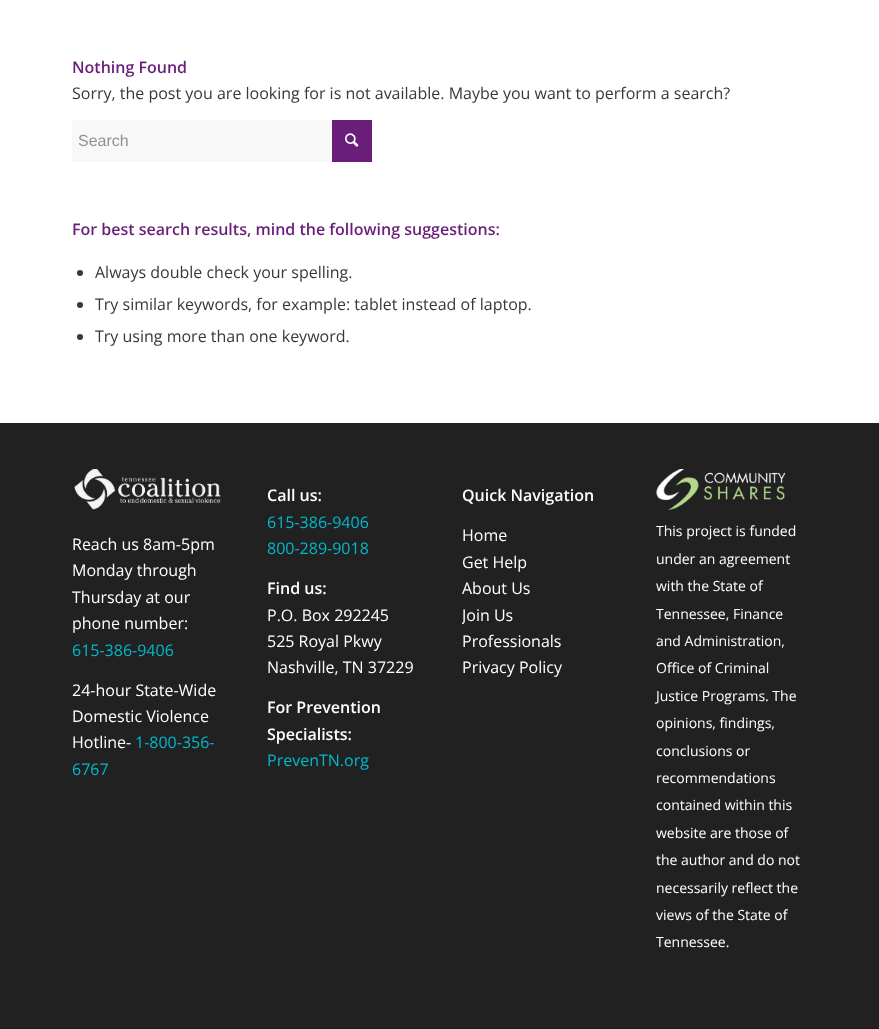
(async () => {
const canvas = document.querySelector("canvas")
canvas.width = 879
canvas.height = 1029
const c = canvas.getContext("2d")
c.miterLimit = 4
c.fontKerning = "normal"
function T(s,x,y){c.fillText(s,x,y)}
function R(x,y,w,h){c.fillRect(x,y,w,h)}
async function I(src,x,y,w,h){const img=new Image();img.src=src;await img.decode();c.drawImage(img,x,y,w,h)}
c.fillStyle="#fff"
R(0,0,879,1029)
c.font="600 16px Open Sans"
c.fillStyle="#691f7a"
T("Nothing Found",72,73)
c.font="16px Open Sans"
c.fillStyle="#383838"
T("Sorry, the post you are looking for is not available. Maybe you want to perform a search?",72,99)
c.fillStyle="#f8f8f8"
R(72,120,260,42)
c.font="16px Liberation Sans"
c.fillStyle="#919191"
T("Search",78,146)
c.fillStyle="#691f7a"
R(332,120,40,42)
await I("1.png",345,133,14,14)
c.font="600 16px Open Sans"
T("For best search results, mind the following suggestions:",72,235)
c.fillStyle="#383838"
c.beginPath()
c.arc(80,273,3,0,7)
c.fill()
c.font="16px Open Sans"
T("Always double check your spelling.",95,278)
c.beginPath()
c.arc(80,305,3,0,7)
c.fill()
T("Try similar keywords, for example: tablet instead of laptop.",95,310)
c.beginPath()
c.arc(80,337,3,0,7)
c.fill()
T("Try using more than one keyword.",95,342)
c.fillStyle="#212121"
R(0,423,879,605)
await I("2.png",74,469,147,41)
c.fillStyle="#fff"
T("Reach us 8am-5pm",72,550)
T("Monday through",72,576)
T("Thursday at our",72,603)
T("phone number:",72,629)
c.fillStyle="#00b9cc"
T("615-386-9406",72,656)
c.fillStyle="#fff"
T("24-hour State-Wide",72,696)
T("Domestic Violence",72,722)
T("Hotline-",72,748)
c.fillStyle="#00b9cc"
T("1-800-356-",135,748)
T("6767",72,775)
c.font="600 16px Open Sans"
c.fillStyle="#fff"
T("Call us:",267,501)
c.font="16px Open Sans"
c.fillStyle="#00b9cc"
T("615-386-9406",267,528)
T("800-289-9018",267,554)
c.font="600 16px Open Sans"
c.fillStyle="#fff"
T("Find us:",267,594)
c.font="16px Open Sans"
T("P.O. Box 292245",267,621)
T("525 Royal Pkwy",267,647)
T("Nashville, TN 37229",267,673)
c.font="600 16px Open Sans"
T("For Prevention",267,713)
T("Specialists:",267,740)
c.font="16px Open Sans"
c.fillStyle="#00b9cc"
T("PrevenTN.org",267,766)
c.font="600 16px Open Sans"
c.fillStyle="#fff"
T("Quick Navigation",462,501)
c.font="16px Open Sans"
T("Home",462,541)
T("Get Help",462,568)
T("About Us",462,594)
c.save()
c.beginPath()
c.rect(462,522,150,159)
c.clip()
T("Join Us",462,621)
c.restore()
T("Professionals",462,647)
T("Privacy Policy",462,673)
await I("3.png",656,469,130,41)
c.font="14px Open Sans"
T("This project is funded",656,536)
T("under an agreement",656,564)
T("with the State of",656,591)
T("Tennessee, Finance",656,619)
T("and Administration,",656,646)
T("Office of Criminal",656,673)
T("Justice Programs. The",656,701)
T("opinions, findings,",656,728)
T("conclusions or",656,756)
T("recommendations",656,783)
T("contained within this",656,810)
T("website are those of",656,838)
T("the author and do not",656,865)
T("necessarily reflect the",656,893)
T("views of the State of",656,920)
T("Tennessee.",656,947)
c.fillStyle="#1c1c1c"
R(0,1028,879,1)
})()
